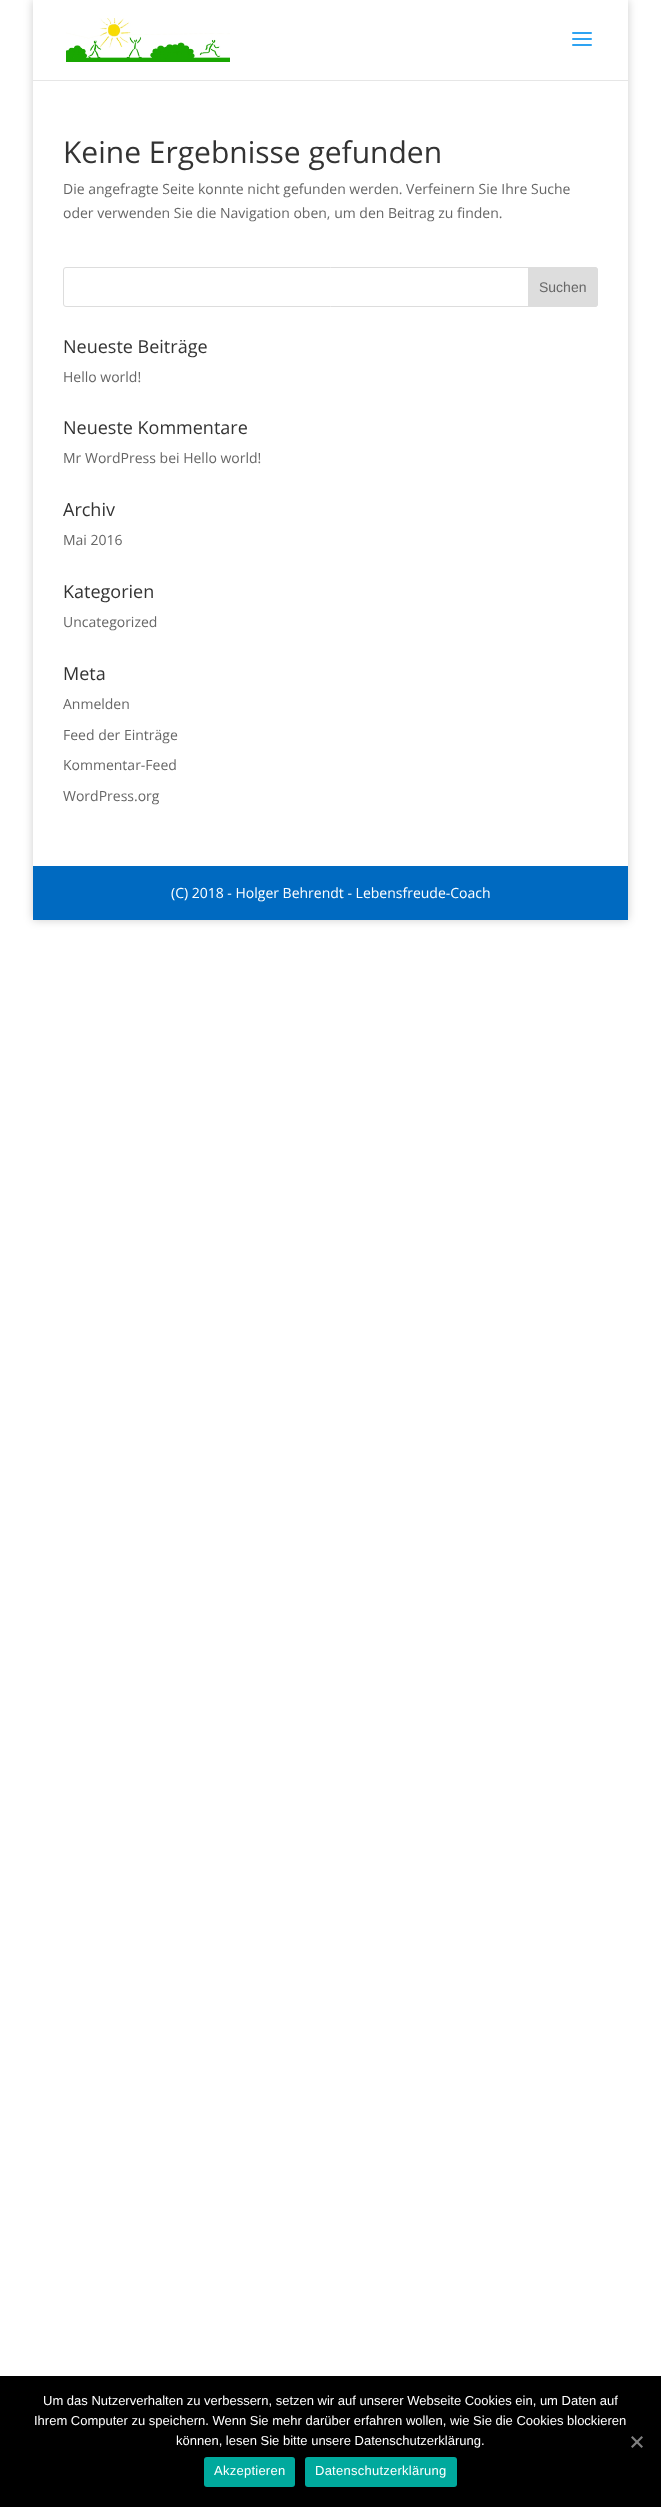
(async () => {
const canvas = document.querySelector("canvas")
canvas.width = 661
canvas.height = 2507
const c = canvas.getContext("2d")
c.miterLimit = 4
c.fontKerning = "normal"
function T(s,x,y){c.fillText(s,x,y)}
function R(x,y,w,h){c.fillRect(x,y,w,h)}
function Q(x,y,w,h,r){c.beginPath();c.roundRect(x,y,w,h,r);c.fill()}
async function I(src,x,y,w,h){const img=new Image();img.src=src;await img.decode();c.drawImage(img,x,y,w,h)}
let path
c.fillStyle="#fff"
R(0,0,661,2507)
c.save()
path = new Path2D("M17 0h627v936h-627zm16 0h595v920h-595z")
c.clip(path,"evenodd")
c.fillStyle="#00000033"
c.filter="blur(5px)"
c.beginPath()
c.rect(33,0,595,920)
c.fill()
c.filter="none"
c.restore()
c.fillStyle="#e6e6e6"
R(33,80,595,1)
await I("1.png",66,18,164,44)
await I("2.png",572,32,20,14)
c.font="30px Open Sans"
c.fillStyle="#333"
T("Keine Ergebnisse gefunden",63,163)
c.font="14px Open Sans"
c.fillStyle="#666"
T("Die angefragte Seite konnte nicht gefunden werden. Verfeinern Sie Ihre Suche",63,194)
T("oder verwenden Sie die Navigation oben, um den Beitrag zu finden.",63,218)
c.beginPath()
c.roundRect(63.5,267.5,534,39,2.5)
c.strokeStyle="#ddd"
c.stroke()
c.fillStyle="#ddd"
c.beginPath()
c.roundRect(528.5,267.5,69,39,[0,2.5,2.5,0])
c.fill()
c.stroke()
c.font="14px Liberation Sans"
c.fillStyle="#666"
T("Suchen",539,292)
c.font="18px Open Sans"
c.fillStyle="#333"
T("Neueste Beiträge",63,353)
c.font="14px Open Sans"
c.fillStyle="#666"
T("Hello world!",63,382)
c.font="18px Open Sans"
c.fillStyle="#333"
T("Neueste Kommentare",63,434)
c.font="14px Open Sans"
c.fillStyle="#666"
T("Mr WordPress bei Hello world!",63,463)
c.font="18px Open Sans"
c.fillStyle="#333"
T("Archiv",63,516)
c.font="14px Open Sans"
c.fillStyle="#666"
T("Mai 2016",63,545)
c.font="18px Open Sans"
c.fillStyle="#333"
T("Kategorien",63,598)
c.font="14px Open Sans"
c.fillStyle="#666"
T("Uncategorized",63,627)
c.font="18px Open Sans"
c.fillStyle="#333"
T("Meta",63,680)
c.font="14px Open Sans"
c.fillStyle="#666"
T("Anmelden",63,709)
T("Feed der Einträge",63,740)
T("Kommentar-Feed",63,770)
T("WordPress.org",63,801)
c.fillStyle="#006ac1"
R(33,866,595,54)
c.fillStyle="#fff"
T("(C) 2018 - Holger Behrendt - Lebensfreude-Coach",171,898)
c.fillStyle="#000"
R(0,2376,661,131)
c.font="13px Liberation Sans"
c.fillStyle="#fff"
T("Um das Nutzerverhalten zu verbessern, setzen wir auf unserer Webseite Cookies ein, um Daten auf",43,2405)
T("Ihrem Computer zu speichern. Wenn Sie mehr darüber erfahren wollen, wie Sie die Cookies blockieren",34,2425)
T("können, lesen Sie bitte unsere Datenschutzerklärung.",176,2445)
c.fillStyle="#808080"
path = new Path2D("M641.5 2436l1.5 1.5l-10.5 10.5l-1.5-1.5z")
c.fill(path)
path = new Path2D("M631 2437.5l1.5-1.5l10.5 10.5l-1.5 1.5z")
c.fill(path)
c.fillStyle="#00a99d"
Q(204,2457,91,30,3)
c.letterSpacing="0.25px"
c.fillStyle="#fff"
T("Akzeptieren",214,2475)
c.fillStyle="#00a99d"
Q(305,2457,152,30,3)
c.fillStyle="#fff"
T("Datenschutzerklärung",315,2475)
})()
